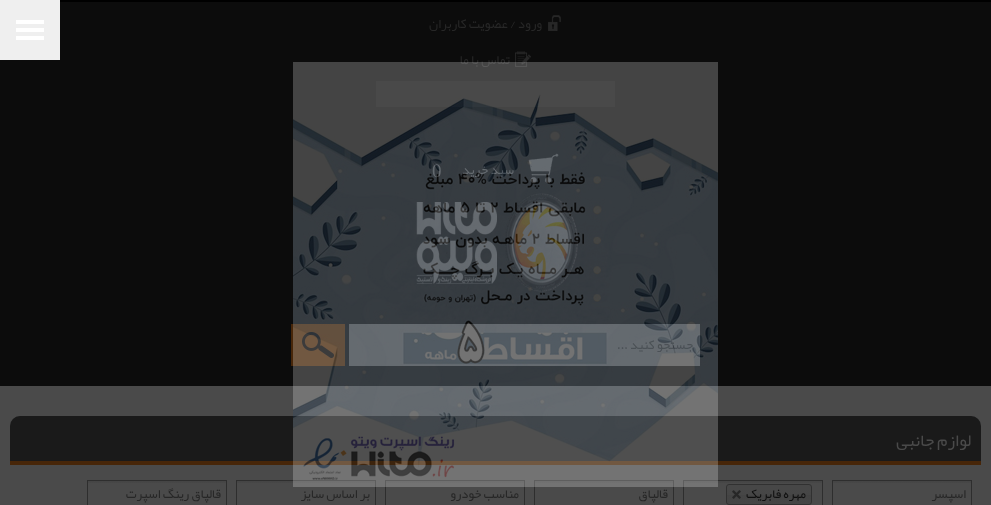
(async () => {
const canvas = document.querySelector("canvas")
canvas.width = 991
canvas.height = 505
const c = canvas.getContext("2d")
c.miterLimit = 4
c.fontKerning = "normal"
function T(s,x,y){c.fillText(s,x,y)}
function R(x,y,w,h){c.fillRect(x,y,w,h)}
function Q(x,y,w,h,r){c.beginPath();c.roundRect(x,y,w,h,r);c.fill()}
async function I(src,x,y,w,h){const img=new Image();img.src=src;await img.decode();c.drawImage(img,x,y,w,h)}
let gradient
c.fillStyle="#0c0c0c"
R(0,0,991,505)
c.fillStyle="#000"
R(60,0,931,2)
await I("1.png",548,15,13,16)
c.direction="rtl"
c.font="13.25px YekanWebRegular"
c.fillStyle="#272727"
T("ورود / عضویت کاربران",542,28)
await I("2.png",515,51,16,16)
T("تماس با ما",510,64)
c.fillStyle="#131313"
R(376,81,239,26)
c.fillStyle="#efefef"
R(0,0,60,60)
c.fillStyle="#fff"
R(16,20,28,4)
R(16,28,28,4)
R(16,36,28,4)
await I("3.png",528,153,31,31)
c.fillStyle="#4a4a4a"
T("سبد",514,174)
T("خرید",488,174)
c.direction="ltr"
c.font="19px Liberation Serif"
T("0",432,177)
await I("4.png",416,193,162,99)
await I("5.png",291,324,409,42)
c.direction="rtl"
c.font="13.25px YekanWebRegular"
c.fillStyle="#272727"
T("جستجو کنید ...",693,349)
c.fillStyle="#4a4a4a"
R(0,386,991,119)
c.fillStyle="#434343"
c.beginPath()
c.roundRect(10,416,971,49,[10,10,0,0])
c.fill()
await I("7.png",10,416,971,49)
gradient = c.createLinearGradient(753,481,753,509)
gradient.addColorStop(.01,"#454545")
gradient.addColorStop(.15,"#4a4a4a")
c.fillStyle = gradient
R(684,481,138,2)
c.strokeStyle="#2e2e2e"
c.strokeRect(683.5,480.5,139,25)
gradient = c.createLinearGradient(604,481,604,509)
gradient.addColorStop(.01,"#454545")
gradient.addColorStop(.15,"#4a4a4a")
c.fillStyle = gradient
R(535,481,138,2)
c.strokeRect(534.5,480.5,139,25)
gradient = c.createLinearGradient(455,481,455,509)
gradient.addColorStop(.01,"#454545")
gradient.addColorStop(.15,"#4a4a4a")
c.fillStyle = gradient
R(386,481,138,2)
c.strokeRect(385.5,480.5,139,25)
gradient = c.createLinearGradient(306,481,306,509)
gradient.addColorStop(.01,"#454545")
gradient.addColorStop(.15,"#4a4a4a")
c.fillStyle = gradient
R(237,481,138,2)
c.strokeRect(236.5,480.5,139,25)
await I("6.png",293,62,425,425)
c.font="17.5px YekanWebRegular"
c.fillStyle="#4a4a4a"
T("لوازم جانبی",971,446)
gradient = c.createLinearGradient(902,481,902,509)
gradient.addColorStop(.01,"#454545")
gradient.addColorStop(.15,"#4a4a4a")
c.fillStyle = gradient
R(833,481,138,2)
c.strokeRect(832.5,480.5,139,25)
c.font="13px YekanWebRegular"
c.fillStyle="#272727"
T("اسپسر",966,498)
gradient = c.createLinearGradient(769,485,769,504)
gradient.addColorStop(.2,"#474747")
gradient.addColorStop(.5,"#464646")
gradient.addColorStop(.52,"#434343")
gradient.addColorStop(1,"#454545")
c.fillStyle = gradient
Q(727,485,84,19,2)
c.beginPath()
c.roundRect(726.5,484.5,85,20,2.5)
c.strokeStyle="#313131"
c.stroke()
c.fillStyle="#0f0f0f"
T("مهره فابریک",806,498)
await I("8.png",732,490,9,9)
c.fillStyle="#272727"
T("قالپاق",668,498)
T("مناسب خودرو",519,498)
T("بر اساس سایز",370,498)
gradient = c.createLinearGradient(157,481,157,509)
gradient.addColorStop(.01,"#454545")
gradient.addColorStop(.15,"#4a4a4a")
c.fillStyle = gradient
R(88,481,138,2)
c.strokeStyle="#2e2e2e"
c.strokeRect(87.5,480.5,139,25)
c.fillStyle="#272727"
T("قالپاق رینگ اسپرت",221,498)
})()
